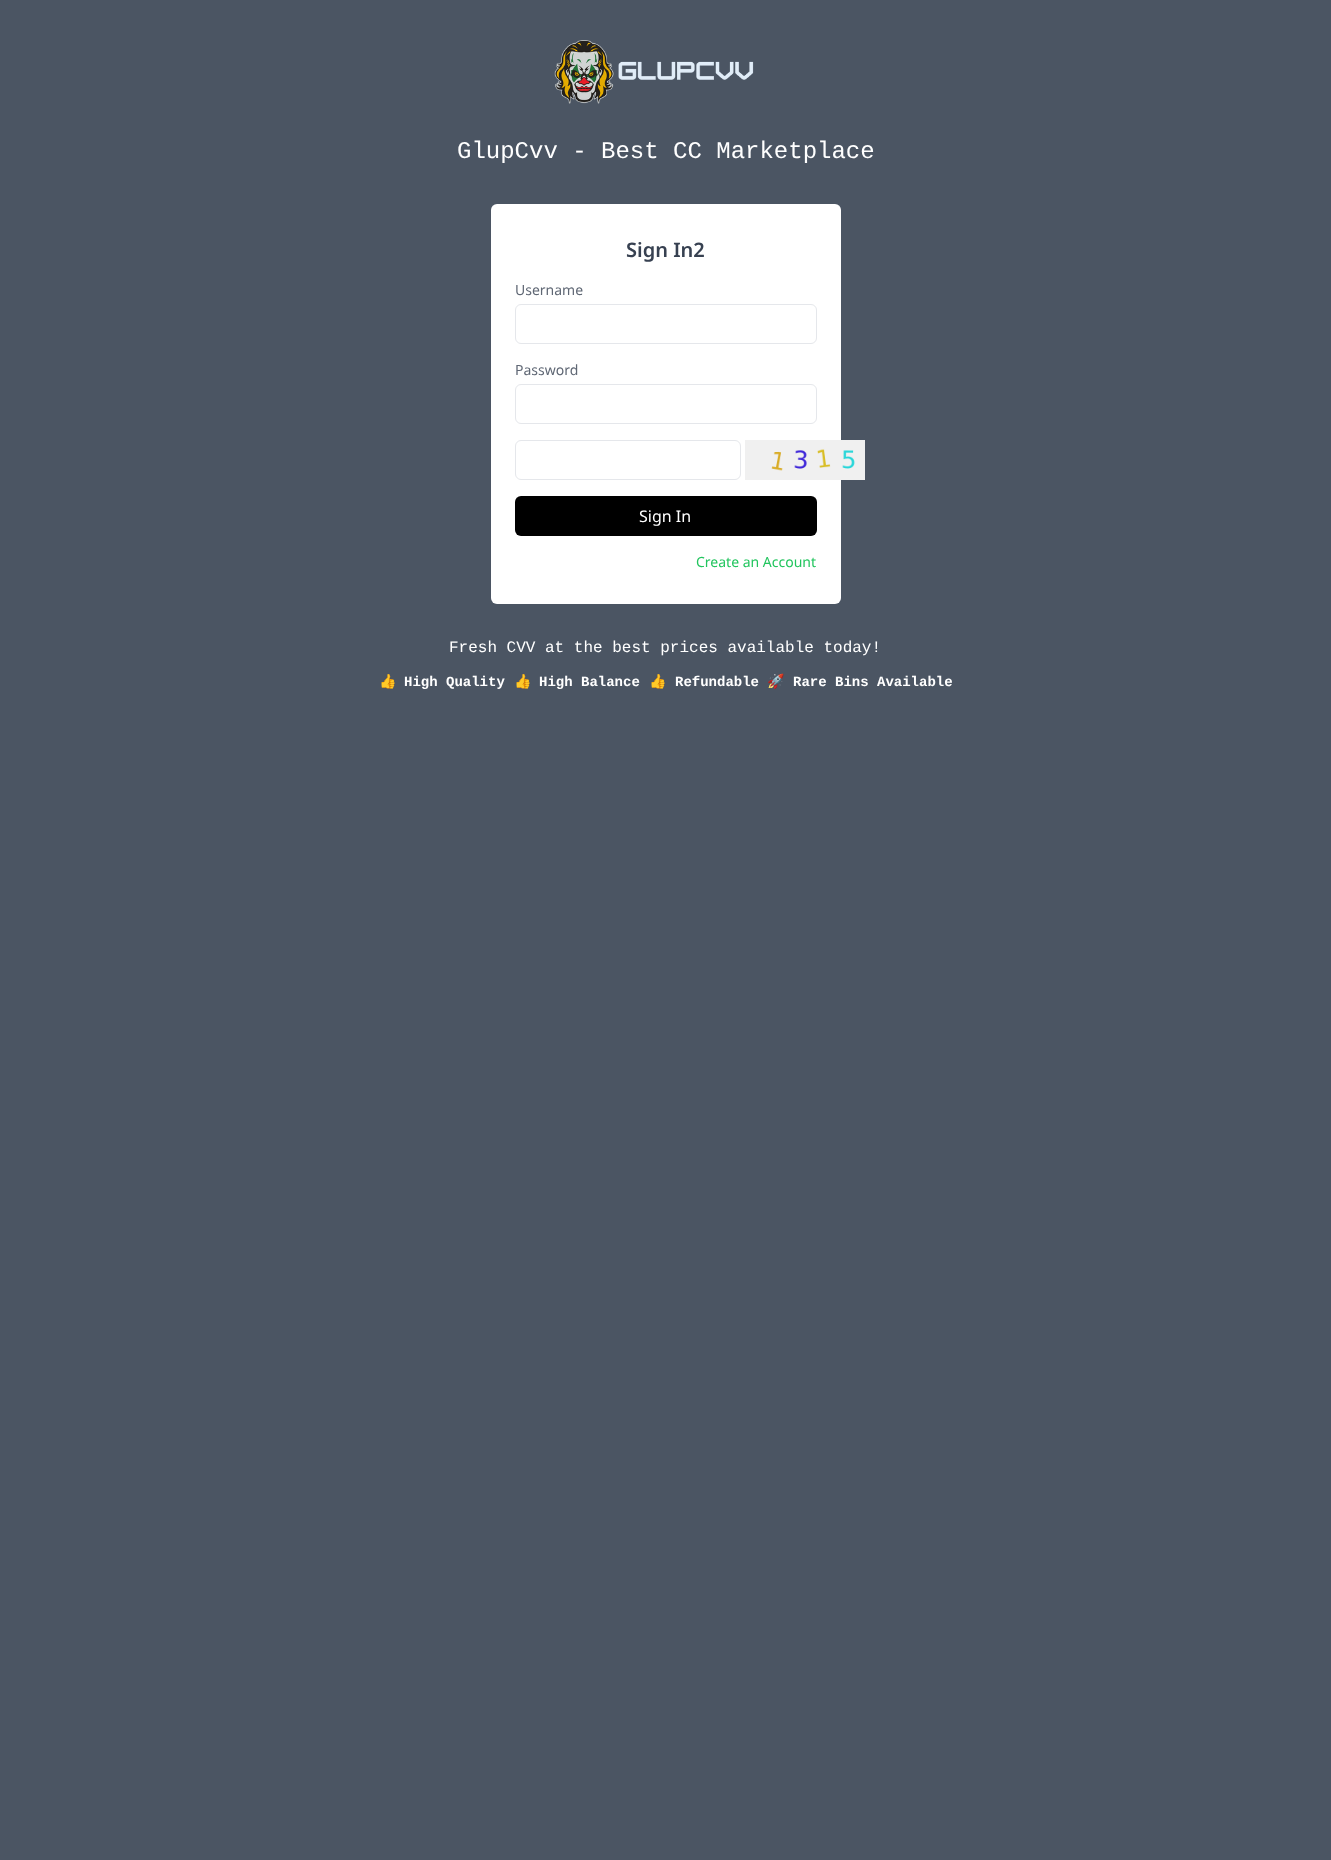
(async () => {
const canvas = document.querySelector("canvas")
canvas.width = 1331
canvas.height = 1860
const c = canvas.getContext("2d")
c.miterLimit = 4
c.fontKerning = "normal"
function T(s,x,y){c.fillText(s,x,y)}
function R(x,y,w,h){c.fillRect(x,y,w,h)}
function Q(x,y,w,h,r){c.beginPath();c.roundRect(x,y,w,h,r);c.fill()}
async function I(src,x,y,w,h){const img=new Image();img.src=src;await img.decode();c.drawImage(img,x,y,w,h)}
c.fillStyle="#4b5563"
R(0,0,1331,1860)
await I("1.png",554,40,200,64)
c.font="24px Liberation Mono"
c.fillStyle="#fff"
T("GlupCvv - Best CC Marketplace",457,158)
Q(491,204,350,400,6)
c.font="600 20px Noto Sans"
c.fillStyle="#374151"
T("Sign In2",626,257)
c.font="14px Noto Sans"
c.fillStyle="#5f6774"
T("Username",515,295)
c.beginPath()
c.roundRect(515.5,304.5,301,39,5.5)
c.strokeStyle="#e5e7eb"
c.stroke()
T("Password",515,375)
c.beginPath()
c.roundRect(515.5,384.5,301,39,5.5)
c.stroke()
c.beginPath()
c.roundRect(515.5,440.5,225,39,5.5)
c.stroke()
await I("2.png",745,440,120,40)
c.fillStyle="#000"
Q(515,496,302,40,6)
c.font="16px Noto Sans"
c.fillStyle="#fff"
T("Sign In",639,522)
c.font="14px Noto Sans"
c.fillStyle="#22c55e"
T("Create an Account",696,567)
c.font="16px Liberation Mono"
c.fillStyle="#fff"
T("Fresh CVV at the best prices available today!",449,652)
c.font="14px Noto Color Emoji"
T("👍",379,686)
c.font="bold 14px Liberation Mono"
T("High Quality",404,686)
c.font="14px Noto Color Emoji"
T("👍",514,686)
c.font="bold 14px Liberation Mono"
T("High Balance",539,686)
c.font="14px Noto Color Emoji"
T("👍",649,686)
c.font="bold 14px Liberation Mono"
T("Refundable",675,686)
c.font="14px Noto Color Emoji"
T("🚀",767,686)
c.font="bold 14px Liberation Mono"
T("Rare Bins Available",793,686)
})()
